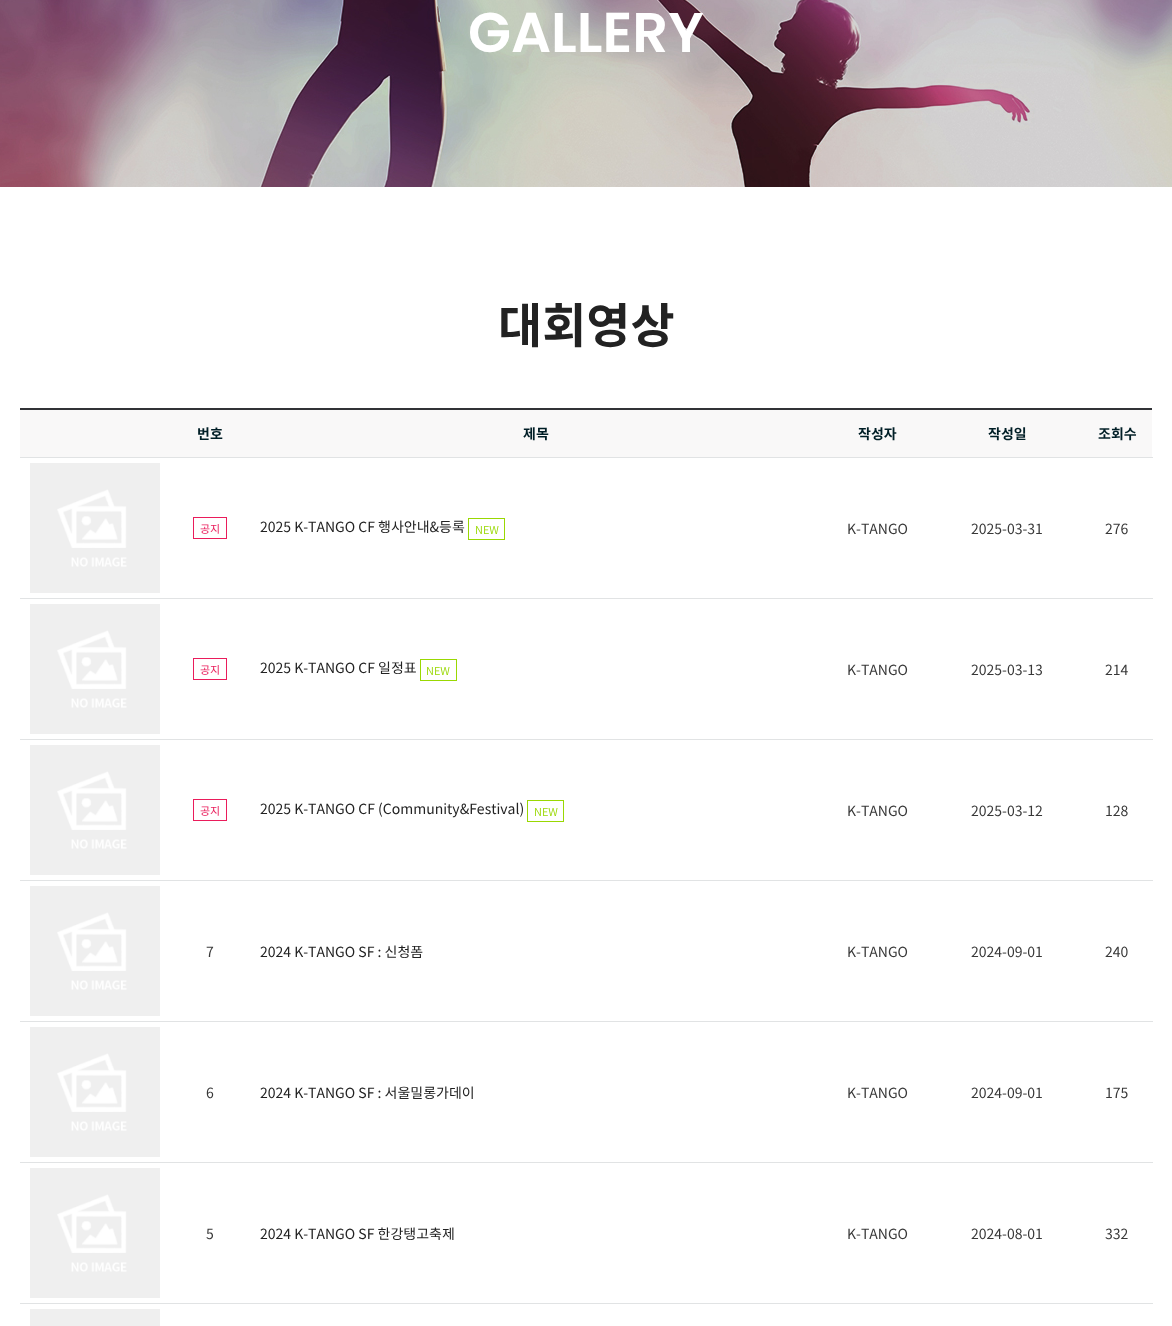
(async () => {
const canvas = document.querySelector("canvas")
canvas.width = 1172
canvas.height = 1326
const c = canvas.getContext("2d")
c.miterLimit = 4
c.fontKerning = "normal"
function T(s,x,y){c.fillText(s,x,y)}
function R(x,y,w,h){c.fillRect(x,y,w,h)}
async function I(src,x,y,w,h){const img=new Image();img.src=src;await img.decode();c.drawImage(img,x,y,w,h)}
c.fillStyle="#fff"
R(0,0,1172,1326)
await I("1.png",0,0,1172,187)
c.font="600 56px Poppins"
T("GALLERY",468,52)
c.font="bold 48px Noto Sans KR"
c.fillStyle="#222"
T("대회영상",498,343)
c.fillStyle="#313236"
R(20,408,1132,2)
c.fillStyle="#e1e3e4"
R(20,457,1133,1)
c.fillStyle="#f9f8f8"
R(20,410,1132,47)
c.font="bold 14px Noto Sans KR"
c.fillStyle="#001e26"
T("번호",197,439)
T("제목",523,439)
T("작성자",858,439)
T("작성일",988,439)
T("조회수",1098,439)
c.fillStyle="#e1e3e4"
R(20,598,1133,1)
await I("2.png",30,463,130,130)
c.strokeStyle="#ea1c5b"
c.strokeRect(193.5,517.5,33,21)
c.font="11px Noto Sans KR"
c.fillStyle="#ea1c5b"
T("공지",200,533)
c.font="14px Noto Sans KR"
c.fillStyle="#222"
T("2025 K-TANGO CF 행사안내&등록",260,532)
c.strokeStyle="#99d802"
c.strokeRect(468.5,518.5,36,21)
c.font="300 11px Noto Sans KR"
c.fillStyle="#99d802"
T("NEW",475,534)
c.font="14px Noto Sans KR"
c.fillStyle="#383838"
T("K-TANGO",847,534)
T("2025-03-31",971,534)
T("276",1105,534)
c.fillStyle="#e1e3e4"
R(20,739,1133,1)
await I("2.png",30,604,130,130)
c.strokeStyle="#ea1c5b"
c.strokeRect(193.5,658.5,33,21)
c.font="11px Noto Sans KR"
c.fillStyle="#ea1c5b"
T("공지",200,674)
c.font="14px Noto Sans KR"
c.fillStyle="#222"
T("2025 K-TANGO CF 일정표",260,673)
c.strokeStyle="#99d802"
c.strokeRect(420.5,659.5,36,21)
c.font="300 11px Noto Sans KR"
c.fillStyle="#99d802"
T("NEW",426,675)
c.font="14px Noto Sans KR"
c.fillStyle="#383838"
T("K-TANGO",847,675)
T("2025-03-13",971,675)
T("214",1105,675)
c.fillStyle="#e1e3e4"
R(20,880,1133,1)
await I("2.png",30,745,130,130)
c.strokeStyle="#ea1c5b"
c.strokeRect(193.5,799.5,33,21)
c.font="11px Noto Sans KR"
c.fillStyle="#ea1c5b"
T("공지",200,815)
c.font="14px Noto Sans KR"
c.fillStyle="#222"
T("2025 K-TANGO CF (Community&Festival)",260,814)
c.strokeStyle="#99d802"
c.strokeRect(527.5,800.5,36,21)
c.font="300 11px Noto Sans KR"
c.fillStyle="#99d802"
T("NEW",534,816)
c.font="14px Noto Sans KR"
c.fillStyle="#383838"
T("K-TANGO",847,816)
T("2025-03-12",971,816)
T("128",1105,816)
c.fillStyle="#e1e3e4"
R(20,1021,1133,1)
await I("3.png",30,886,130,130)
c.fillStyle="#383838"
T("7",206,957)
c.fillStyle="#222"
T("2024 K-TANGO SF : 신청폼",260,957)
c.fillStyle="#383838"
T("K-TANGO",847,957)
T("2024-09-01",971,957)
T("240",1105,957)
c.fillStyle="#e1e3e4"
R(20,1162,1133,1)
await I("2.png",30,1027,130,130)
c.fillStyle="#383838"
T("6",206,1098)
c.fillStyle="#222"
T("2024 K-TANGO SF : 서울밀롱가데이",260,1098)
c.fillStyle="#383838"
T("K-TANGO",847,1098)
T("2024-09-01",971,1098)
T("175",1105,1098)
c.fillStyle="#e1e3e4"
R(20,1303,1133,1)
await I("2.png",30,1168,130,130)
c.fillStyle="#383838"
T("5",206,1239)
c.fillStyle="#222"
T("2024 K-TANGO SF 한강탱고축제",260,1239)
c.fillStyle="#383838"
T("K-TANGO",847,1239)
T("2024-08-01",971,1239)
T("332",1105,1239)
c.fillStyle="#efefef"
R(30,1309,130,17)
})()
